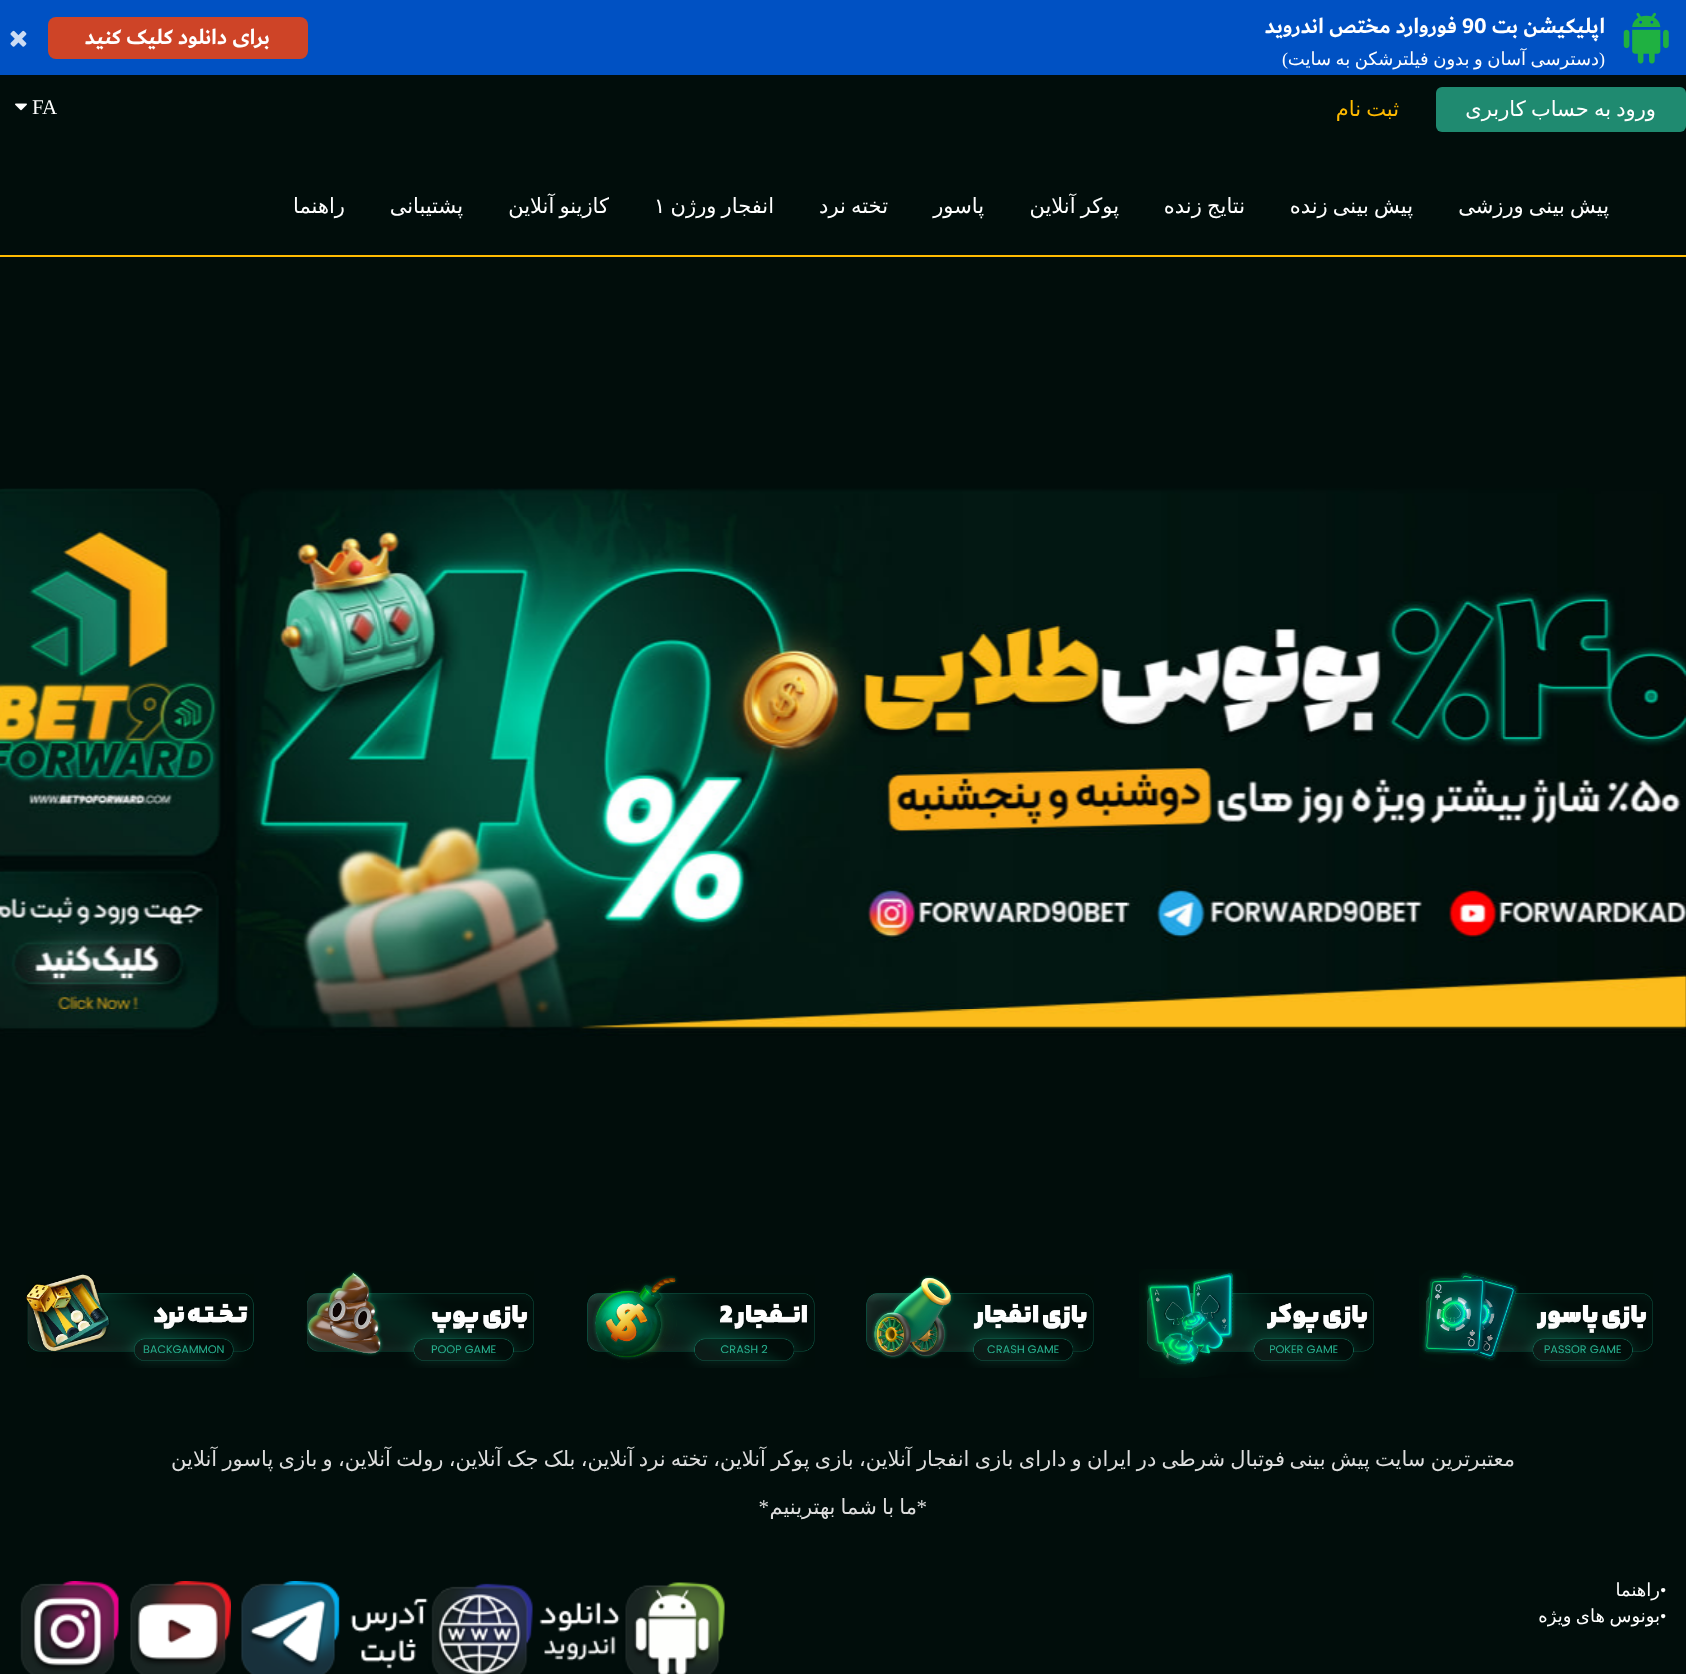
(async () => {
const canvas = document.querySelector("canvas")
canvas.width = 1686
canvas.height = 1674
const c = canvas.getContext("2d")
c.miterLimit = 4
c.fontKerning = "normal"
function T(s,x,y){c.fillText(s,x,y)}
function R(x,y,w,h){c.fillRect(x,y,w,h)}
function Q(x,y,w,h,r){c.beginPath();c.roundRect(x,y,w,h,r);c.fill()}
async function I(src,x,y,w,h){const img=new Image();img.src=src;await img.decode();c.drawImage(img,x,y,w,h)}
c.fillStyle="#010d0b"
R(0,0,1686,1674)
c.fillStyle="#0051c3"
R(0,0,1686,75)
await I("1.png",1623,12,46,52)
c.direction="rtl"
c.font="bold 22.5px 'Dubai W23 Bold'"
c.fillStyle="#fff"
T("اپلیکیشن بت",1605,33)
c.direction="ltr"
T("90",1462,33)
c.direction="rtl"
T("فوروارد مختص اندروید",1457,33)
c.wordSpacing="-1.25px"
c.font="18px DejaVu Sans"
T("دسترسی آسان و بدون فیلترشکن به سایت",1599,65)
c.wordSpacing="0px"
c.font="18px Liberation Serif"
T(")",1288,65)
T("(",1605,65)
c.fillStyle="#ce4427"
Q(48,17,260,42,8)
c.font="bold 22.5px 'Dubai W23 Bold'"
c.fillStyle="#fff"
T("برای دانلود کلیک کنید",270,44)
await I("2.png",10,30,17,17)
c.fillStyle="#1f8a70"
Q(1436,87,250,45,6)
c.wordSpacing="-1.5px"
c.font="21px DejaVu Sans"
c.fillStyle="#fff"
T("ورود به حساب کاربری",1656,116)
c.fillStyle="#ffba00"
T("ثبت نام",1399,116)
c.wordSpacing="0px"
c.direction="ltr"
c.font="21px Liberation Serif"
c.fillStyle="#fff"
T("FA",32,114)
await I("3.png",15,103,12,8)
c.wordSpacing="-1.5px"
c.direction="rtl"
c.font="21px DejaVu Sans"
T("پیش بینی ورزشی",1609,213)
T("پیش بینی زنده",1413,213)
T("نتایج زنده",1245,213)
T("پوکر آنلاین",1119,213)
c.wordSpacing="0px"
T("پاسور",984,213)
c.wordSpacing="-1.5px"
T("تخته نرد",888,213)
T("انفجار ورژن",774,213)
c.wordSpacing="0px"
c.direction="ltr"
T("۱",654,213)
c.wordSpacing="-1.5px"
c.direction="rtl"
T("کازینو آنلاین",609,213)
c.wordSpacing="0px"
T("پشتیبانی",463,213)
T("راهنما",345,213)
c.fillStyle="#ffbb02"
R(0,255,1686,2)
await I("4.png",0,488,1686,549)
await I("5.png",1419,1270,234,98)
await I("6.png",1139,1269,235,109)
await I("7.png",866,1275,228,93)
await I("8.png",587,1275,228,93)
await I("9.png",305,1271,229,97)
await I("10.png",26,1274,228,94)
c.wordSpacing="-1.4px"
c.fillStyle="#ddd"
T("فوتبال شرطی در ایران و دارای بازی انفجار آنلاین، بازی پوکر آنلاین، تخته نرد آنلاین، بلک جک آنلاین، رولت آنلاین، و بازی پاسور آنلاین",1285,1466)
T("ترین سایت پیش بینی",1470,1466)
c.wordSpacing="0px"
T("معتبر",1515,1466)
c.wordSpacing="-1.5px"
T("ما با شما بهترینیم",917,1514)
c.wordSpacing="0px"
c.font="21px Liberation Serif"
T("*",927,1514)
T("*",769,1514)
c.direction="ltr"
c.font="18px Liberation Serif"
c.fillStyle="#fff"
T("•",1660,1596)
c.direction="rtl"
c.font="18px DejaVu Sans"
T("راهنما",1660,1596)
c.direction="ltr"
c.font="18px Liberation Serif"
T("•",1660,1622)
c.wordSpacing="-1.25px"
c.direction="rtl"
c.font="18px DejaVu Sans"
T("بونوس های ویژه",1660,1622)
await I("11.png",539,1582,186,92)
await I("12.png",350,1583,183,91)
await I("13.png",241,1581,99,93)
await I("14.png",130,1581,101,93)
await I("15.png",20,1581,99,93)
})()
